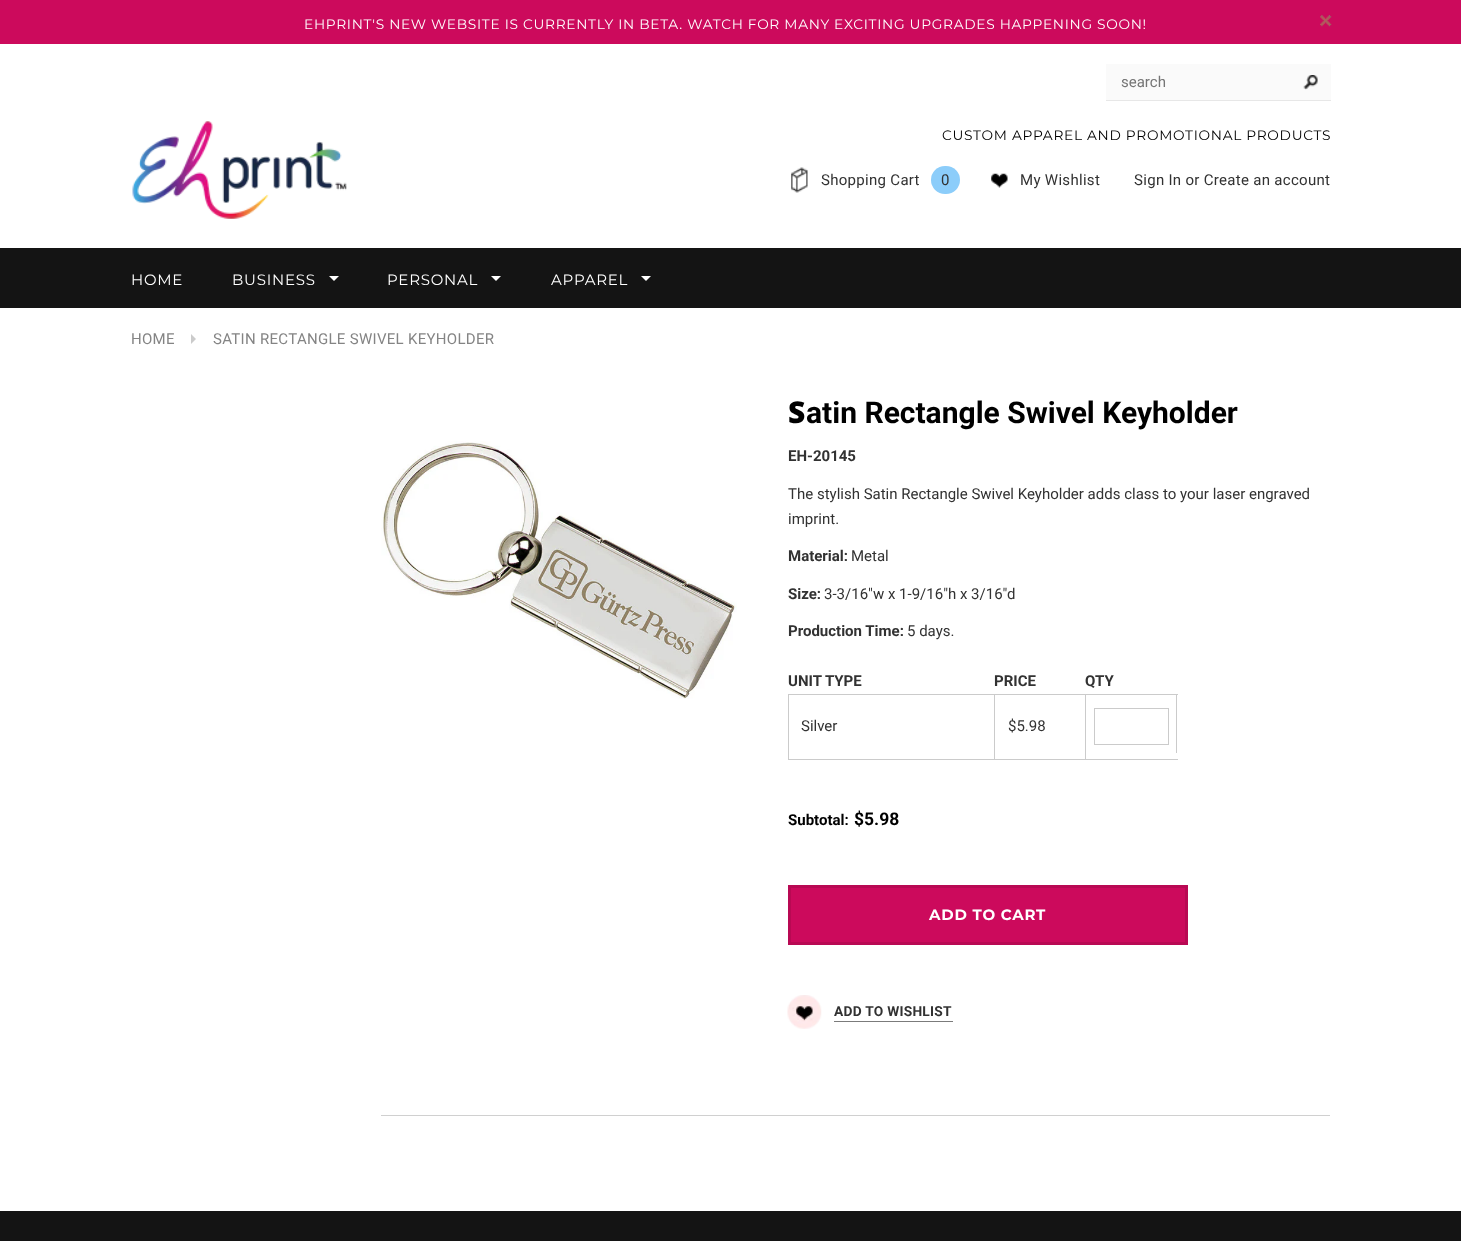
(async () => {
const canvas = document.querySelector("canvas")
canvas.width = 1461
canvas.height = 1241
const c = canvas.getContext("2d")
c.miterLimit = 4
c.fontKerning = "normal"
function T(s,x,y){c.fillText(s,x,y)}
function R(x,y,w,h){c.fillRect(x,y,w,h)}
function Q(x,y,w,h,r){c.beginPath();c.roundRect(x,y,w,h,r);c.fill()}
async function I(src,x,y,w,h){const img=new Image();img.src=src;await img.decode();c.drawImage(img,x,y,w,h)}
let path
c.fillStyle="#fff"
R(0,0,1461,1241)
c.fillStyle="#cc0a5c"
R(0,0,1461,44)
c.letterSpacing="0.7px"
c.font="13.75px Montserrat"
c.fillStyle="#fff"
T("EHPRINT'S NEW WEBSITE IS CURRENTLY IN BETA. WATCH FOR MANY EXCITING UPGRADES HAPPENING SOON!",304,29)
await I("1.png",1320,15,12,12)
c.fillStyle="#fafafa"
R(1106,64,225,36)
c.fillStyle="#e7e7e7"
R(1106,100,225,1)
c.letterSpacing="0px"
c.font="15px Roboto"
c.fillStyle="#757575"
T("search",1121,87)
await I("2.png",1303,75,15,15)
await I("3.png",132,121,215,98)
c.letterSpacing="0.7px"
c.font="13.75px Montserrat"
c.fillStyle="#000"
T("CUSTOM APPAREL AND PROMOTIONAL PRODUCTS",942,140)
await I("4.png",791,167,17,26)
c.letterSpacing="0.3px"
c.font="15px Roboto"
c.fillStyle="#323232"
T("Shopping Cart",821,185)
c.fillStyle="#8ccdfa"
Q(931,166,29,28,14)
c.fillStyle="#323232"
T("0",941,185)
await I("5.png",991,173,17,15)
T("My Wishlist",1020,185)
T("Sign In or Create an account",1134,185)
c.fillStyle="#141414"
R(0,248,1461,60)
c.letterSpacing="0.75px"
c.font="15px Montserrat"
c.fillStyle="#fff"
T("HOME",131,285)
T("BUSINESS",232,285)
path = new Path2D("M329 276h10l-5 5z")
c.fill(path)
T("PERSONAL",387,285)
path = new Path2D("M491 276h10l-5 5z")
c.fill(path)
T("APPAREL",551,285)
path = new Path2D("M641 276h10l-5 5z")
c.fill(path)
c.letterSpacing="0.3px"
c.font="15px Roboto"
c.fillStyle="#848484"
T("HOME",131,344)
c.fillStyle="#cbcbcb"
path = new Path2D("M191 344v-10l5 5z")
c.fill(path)
c.fillStyle="#848484"
T("SATIN RECTANGLE SWIVEL KEYHOLDER",213,344)
await I("6.png",381,441,356,258)
c.letterSpacing="0px"
c.font="900 30px Noto Sans"
c.fillStyle="#000"
T("S",788,423)
c.font="bold 30px Roboto"
T("atin Rectangle Swivel Keyholder",806,423)
c.font="bold 15px Roboto"
c.fillStyle="#323232"
T("EH-20145",788,461)
c.font="15px Roboto"
T("The stylish Satin Rectangle Swivel Keyholder adds class to your laser engraved",788,499)
T("imprint.",788,524)
c.font="bold 15px Roboto"
T("Material:",788,561)
c.font="15px Roboto"
T("Metal",851,561)
c.font="bold 15px Roboto"
T("Size:",788,599)
c.font="15px Roboto"
T("3-3/16\"w x 1-9/16\"h x 3/16\"d",824,599)
c.font="bold 15px Roboto"
T("Production Time:",788,636)
c.font="15px Roboto"
T("5 days.",907,636)
c.font="bold 15px Roboto"
T("UNIT TYPE",788,686)
T("PRICE",994,686)
T("QTY",1085,686)
c.fillStyle="#cbcbcb"
R(788,759,390,1)
R(788,694,1,65)
R(789,694,389,1)
R(994,694,1,65)
c.font="15px Roboto"
c.fillStyle="#323232"
T("Silver",801,731)
c.fillStyle="#cbcbcb"
R(1085,694,1,65)
c.fillStyle="#323232"
T("$5.98",1008,731)
c.fillStyle="#cbcbcb"
R(1176,694,1,59)
c.strokeStyle="#cbcbcb"
c.strokeRect(1094.5,708.5,74,36)
c.font="bold 15px Roboto"
c.fillStyle="#000"
T("Subtotal:",788,825)
c.font="bold 17.5px Roboto"
T("$5.98",854,825)
c.fillStyle="#cc0a5c"
c.beginPath()
c.rect(789.5,886.5,397,57)
c.fill()
c.strokeStyle="#b80953"
c.lineWidth=3
c.stroke()
c.letterSpacing="0.75px"
c.font="bold 15px Montserrat"
c.fillStyle="#fff"
T("ADD TO CART",929,920)
await I("7.png",787,995,35,34)
c.fillStyle="#7b7b7b"
R(834,1021,119,1)
c.letterSpacing="0.25px"
c.font="bold 13.75px Roboto"
c.fillStyle="#323232"
T("ADD TO WISHLIST",834,1016)
c.fillStyle="#d0d0d0"
R(381,1115,949,1)
c.fillStyle="#141414"
R(0,1211,1461,30)
})()
